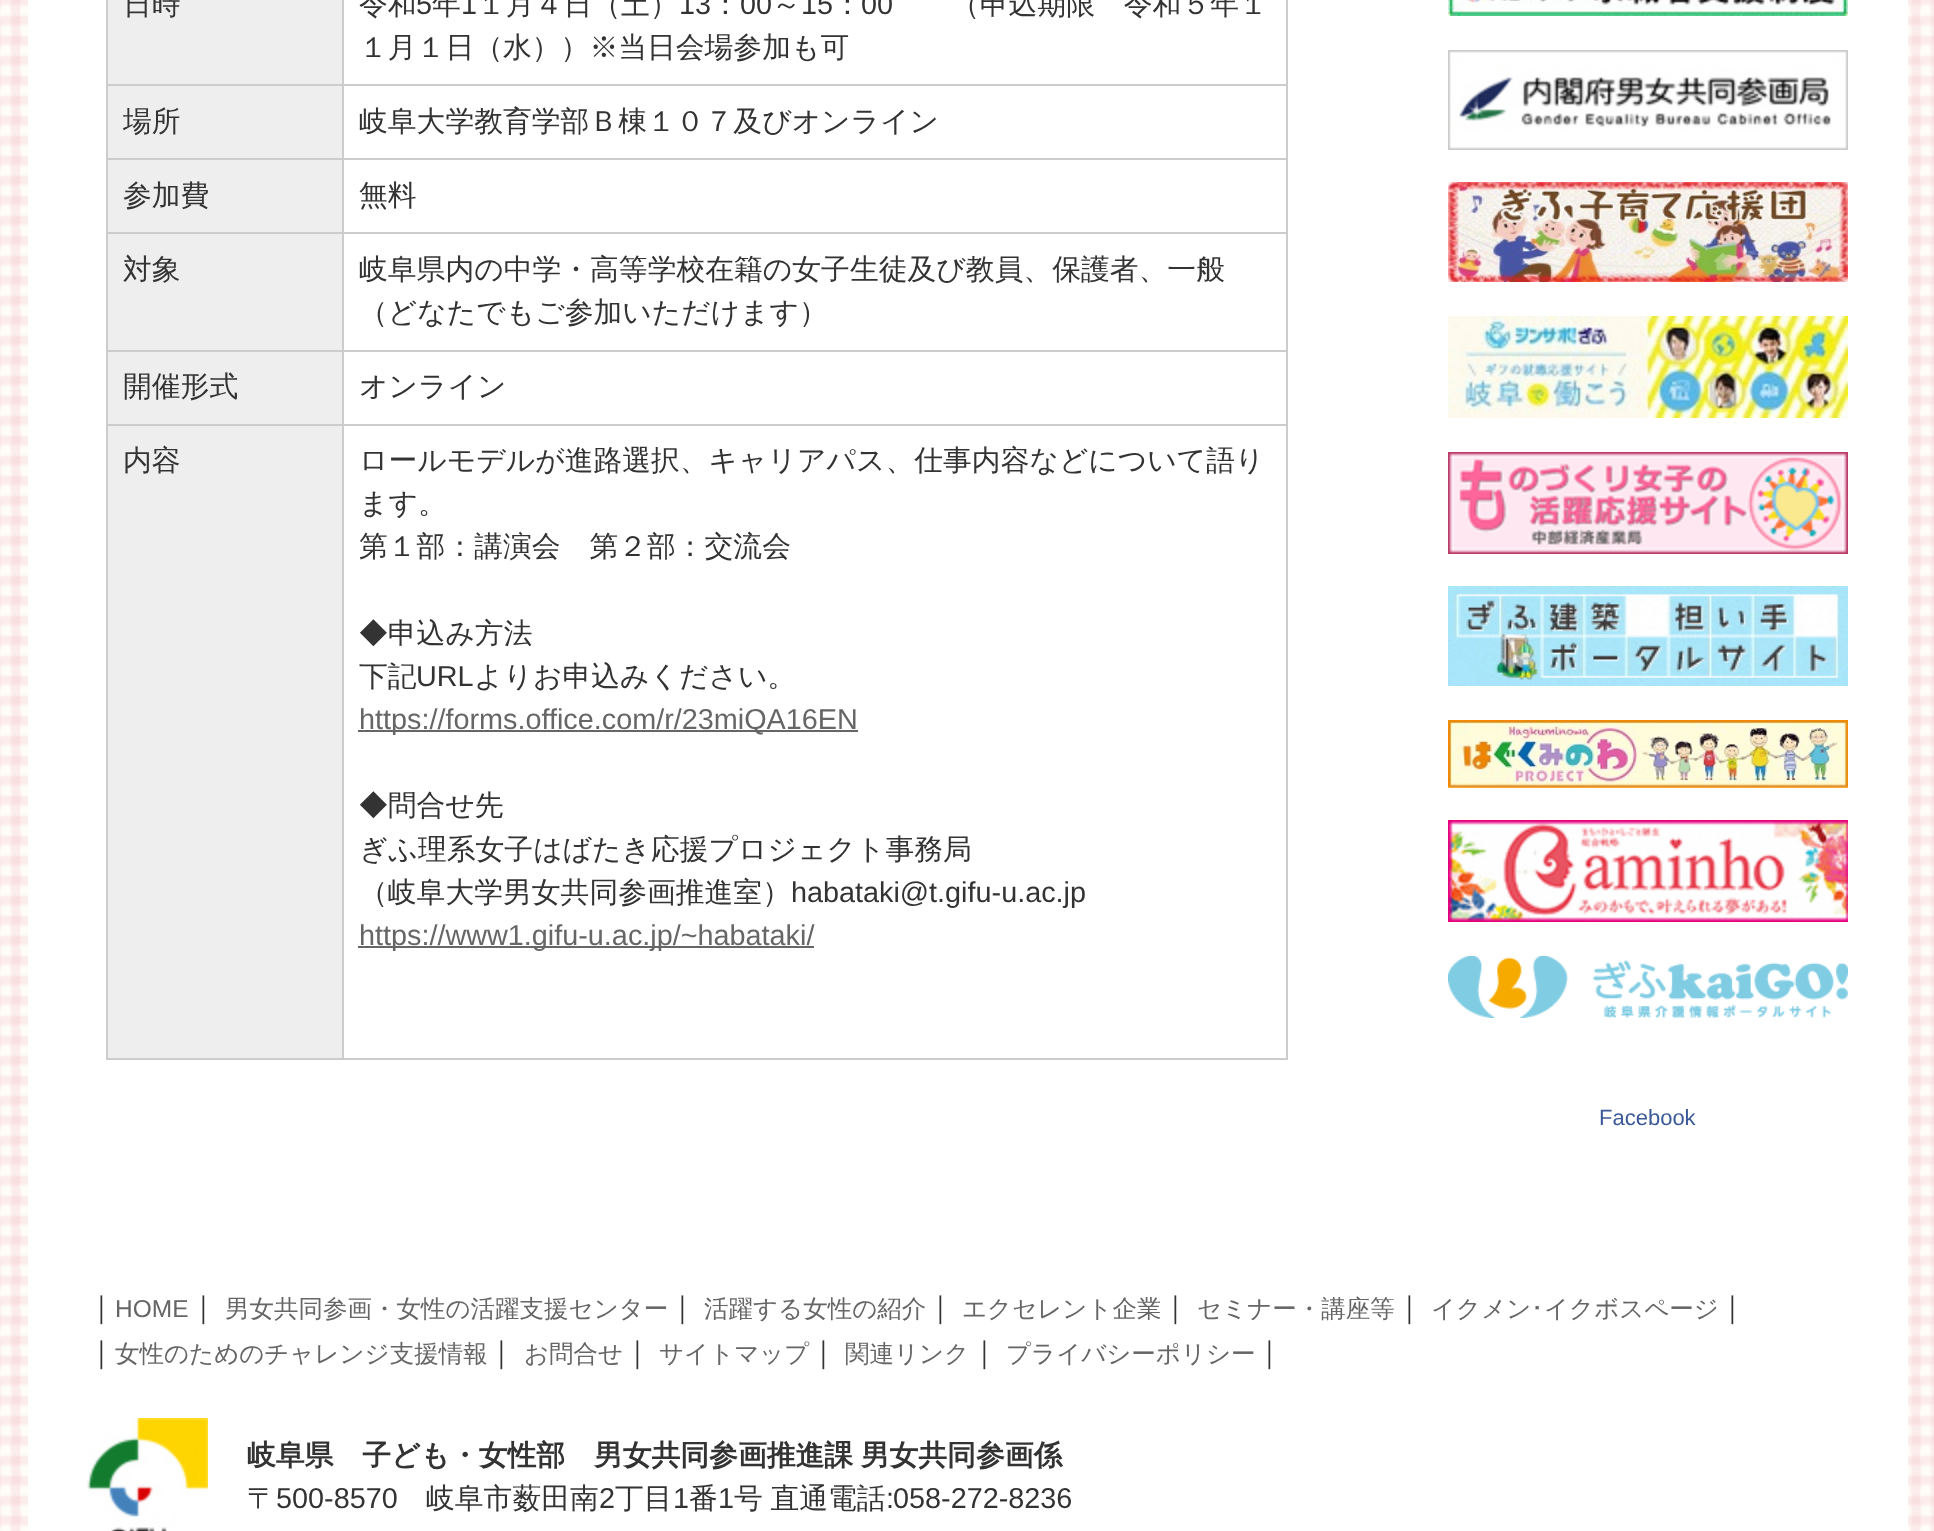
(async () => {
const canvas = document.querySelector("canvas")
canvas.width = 1934
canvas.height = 1531
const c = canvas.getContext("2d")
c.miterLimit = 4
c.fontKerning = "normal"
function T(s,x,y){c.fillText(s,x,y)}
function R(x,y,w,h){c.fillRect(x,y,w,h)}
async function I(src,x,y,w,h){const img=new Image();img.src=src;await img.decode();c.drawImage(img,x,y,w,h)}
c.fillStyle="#fff"
R(0,0,1934,1531)
await I("1.png",0,0,1934,1531)
R(28,0,1880,1531)
c.fillStyle="#eee"
R(108,0,234,84)
c.font="500 28.8px WenQuanYi Zen Hei"
c.fillStyle="#333"
T("日時",123,14)
c.fillStyle="#ccc"
R(342,84,946,2)
R(342,158,946,2)
R(342,232,946,2)
R(342,350,946,2)
R(342,424,946,2)
R(1286,424,2,636)
R(342,1058,946,2)
R(342,424,2,636)
R(106,424,238,2)
R(342,350,2,76)
R(106,350,238,2)
R(342,232,2,120)
R(106,232,238,2)
R(342,158,2,76)
R(106,158,238,2)
R(342,84,2,76)
R(106,84,238,2)
R(342,0,2,86)
c.fillStyle="#333"
T("令和",359,14)
c.font="28.8px Liberation Sans"
T("5",416,14)
c.font="500 28.8px WenQuanYi Zen Hei"
T("年",432,14)
c.font="28.8px Liberation Sans"
T("1",461,14)
c.font="500 28.8px WenQuanYi Zen Hei"
T("１月４日（土）",477,14)
c.font="28.8px Liberation Sans"
T("13",679,14)
c.font="500 28.8px WenQuanYi Zen Hei"
T("：",711,14)
c.font="28.8px Liberation Sans"
T("00",740,14)
c.font="500 28.8px WenQuanYi Zen Hei"
T("～",772,14)
c.font="28.8px Liberation Sans"
T("15",801,14)
c.font="500 28.8px WenQuanYi Zen Hei"
T("：",833,14)
c.font="28.8px Liberation Sans"
T("00",861,14)
c.font="500 28.8px WenQuanYi Zen Hei"
T("（申込期限　令和５年１",951,14)
T("１月１日（水））※当日会場参加も可",359,57)
c.fillStyle="#eee"
R(108,86,234,72)
c.fillStyle="#ccc"
R(106,1058,238,2)
R(106,424,2,636)
R(106,350,2,76)
R(106,232,2,120)
R(106,158,2,76)
R(106,0,2,160)
c.fillStyle="#333"
T("場所",123,131)
c.fillStyle="#ccc"
R(1286,350,2,76)
R(1286,232,2,120)
R(1286,158,2,76)
R(1286,0,2,160)
c.fillStyle="#333"
T("岐阜大学教育学部Ｂ棟１０７及びオンライン",359,131)
c.fillStyle="#eee"
R(108,160,234,72)
c.fillStyle="#333"
T("参加費",123,205)
T("無料",359,205)
c.fillStyle="#eee"
R(108,234,234,116)
c.fillStyle="#333"
T("対象",123,279)
T("岐阜県内の中学・高等学校在籍の女子生徒及び教員、保護者、一般",359,279)
T("（どなたでもご参加いただけます）",359,322)
c.fillStyle="#eee"
R(108,352,234,72)
c.fillStyle="#333"
T("開催形式",123,396)
T("オンライン",359,396)
c.fillStyle="#eee"
R(108,426,234,632)
c.fillStyle="#333"
T("内容",123,470)
T("ロールモデルが進路選択、キャリアパス、仕事内容などについて語り",359,470)
T("ます。",359,513)
T("第１部：講演会　第２部：交流会",359,556)
T("◆申込み方法",359,643)
T("下記",359,686)
c.font="28.8px Liberation Sans"
T("URL",416,686)
c.font="500 28.8px WenQuanYi Zen Hei"
T("よりお申込みください。",474,686)
c.fillStyle="#666"
R(358,730,500,2)
c.font="28.8px Liberation Sans"
T("https://forms.office.com/r/23miQA16EN",359,729)
c.font="500 28.8px WenQuanYi Zen Hei"
c.fillStyle="#333"
T("◆問合せ先",359,815)
T("ぎふ理系女子はばたき応援プロジェクト事務局",359,859)
T("（岐阜大学男女共同参画推進室）",359,902)
c.font="28.8px Liberation Sans"
T("habataki@t.gifu-u.ac.jp",791,902)
c.fillStyle="#666"
R(358,946,456,2)
T("https://www1.gifu-u.ac.jp/~habataki/",359,945)
await I("2.png",1448,0,400,16)
await I("3.png",1448,50,400,100)
await I("4.png",1448,182,400,100)
await I("5.png",1448,316,400,102)
await I("6.png",1448,452,400,102)
await I("7.png",1448,586,400,100)
await I("8.png",1448,720,400,68)
await I("9.png",1448,820,400,102)
await I("10.png",1448,956,400,62)
c.font="22px Liberation Sans"
c.fillStyle="#3b5998"
T("Facebook",1599,1125)
c.font="500 28.8px WenQuanYi Zen Hei"
c.fillStyle="#333"
T("｜",87,1317)
c.font="24.5px Liberation Sans"
c.fillStyle="#666"
T("HOME",115,1317)
c.font="500 28.8px WenQuanYi Zen Hei"
c.fillStyle="#333"
T("｜",189,1317)
c.font="500 24.5px WenQuanYi Zen Hei"
c.fillStyle="#666"
T("男女共同参画・女性の活躍支援センター",225,1317)
c.font="500 28.8px WenQuanYi Zen Hei"
c.fillStyle="#333"
T("｜",668,1317)
c.font="500 24.5px WenQuanYi Zen Hei"
c.fillStyle="#666"
T("活躍する女性の紹介",704,1317)
c.font="500 28.8px WenQuanYi Zen Hei"
c.fillStyle="#333"
T("｜",926,1317)
c.font="500 24.5px WenQuanYi Zen Hei"
c.fillStyle="#666"
T("エクセレント企業",962,1317)
c.font="500 28.8px WenQuanYi Zen Hei"
c.fillStyle="#333"
T("｜",1161,1317)
c.font="500 24.5px WenQuanYi Zen Hei"
c.fillStyle="#666"
T("セミナー・講座等",1197,1317)
c.font="500 28.8px WenQuanYi Zen Hei"
c.fillStyle="#333"
T("｜",1395,1317)
c.font="500 24.5px WenQuanYi Zen Hei"
c.fillStyle="#666"
T("イクメン",1431,1317)
c.font="24.5px IPAPGothic"
T("･",1531,1317)
c.font="500 24.5px WenQuanYi Zen Hei"
T("イクボスページ",1544,1317)
c.font="500 28.8px WenQuanYi Zen Hei"
c.fillStyle="#333"
T("｜",1718,1317)
T("｜",87,1362)
c.font="500 24.5px WenQuanYi Zen Hei"
c.fillStyle="#666"
T("女性のためのチャレンジ支援情報",115,1362)
c.font="500 28.8px WenQuanYi Zen Hei"
c.fillStyle="#333"
T("｜",487,1362)
c.font="500 24.5px WenQuanYi Zen Hei"
c.fillStyle="#666"
T("お問合せ",524,1362)
c.font="500 28.8px WenQuanYi Zen Hei"
c.fillStyle="#333"
T("｜",623,1362)
c.font="500 24.5px WenQuanYi Zen Hei"
c.fillStyle="#666"
T("サイトマップ",659,1362)
c.font="500 28.8px WenQuanYi Zen Hei"
c.fillStyle="#333"
T("｜",809,1362)
c.font="500 24.5px WenQuanYi Zen Hei"
c.fillStyle="#666"
T("関連リンク",845,1362)
c.font="500 28.8px WenQuanYi Zen Hei"
c.fillStyle="#333"
T("｜",970,1362)
c.font="500 24.5px WenQuanYi Zen Hei"
c.fillStyle="#666"
T("プライバシーポリシー",1006,1362)
c.font="500 28.8px WenQuanYi Zen Hei"
c.fillStyle="#333"
T("｜",1255,1362)
await I("11.png",87,1418,121,113)
c.wordSpacing="-1px"
c.font="bold 28.8px WenQuanYi Zen Hei"
T("岐阜県　子ども・女性部　男女共同参画推進課 男女共同参画係",247,1465)
c.wordSpacing="0px"
c.font="500 28.8px WenQuanYi Zen Hei"
T("〒",247,1508)
c.font="28.8px Liberation Sans"
T("500-8570",276,1508)
c.font="500 28.8px WenQuanYi Zen Hei"
T("岐阜市薮田南",426,1508)
c.font="28.8px Liberation Sans"
T("2",599,1508)
c.font="500 28.8px WenQuanYi Zen Hei"
T("丁目",615,1508)
c.font="28.8px Liberation Sans"
T("1",673,1508)
c.font="500 28.8px WenQuanYi Zen Hei"
T("番",689,1508)
c.font="28.8px Liberation Sans"
T("1",718,1508)
c.wordSpacing="-1px"
c.font="500 28.8px WenQuanYi Zen Hei"
T("号 直通電話",734,1508)
c.wordSpacing="0px"
c.font="28.8px Liberation Sans"
T(":",886,1508)
T("058-272-8236",893,1508)
})()
